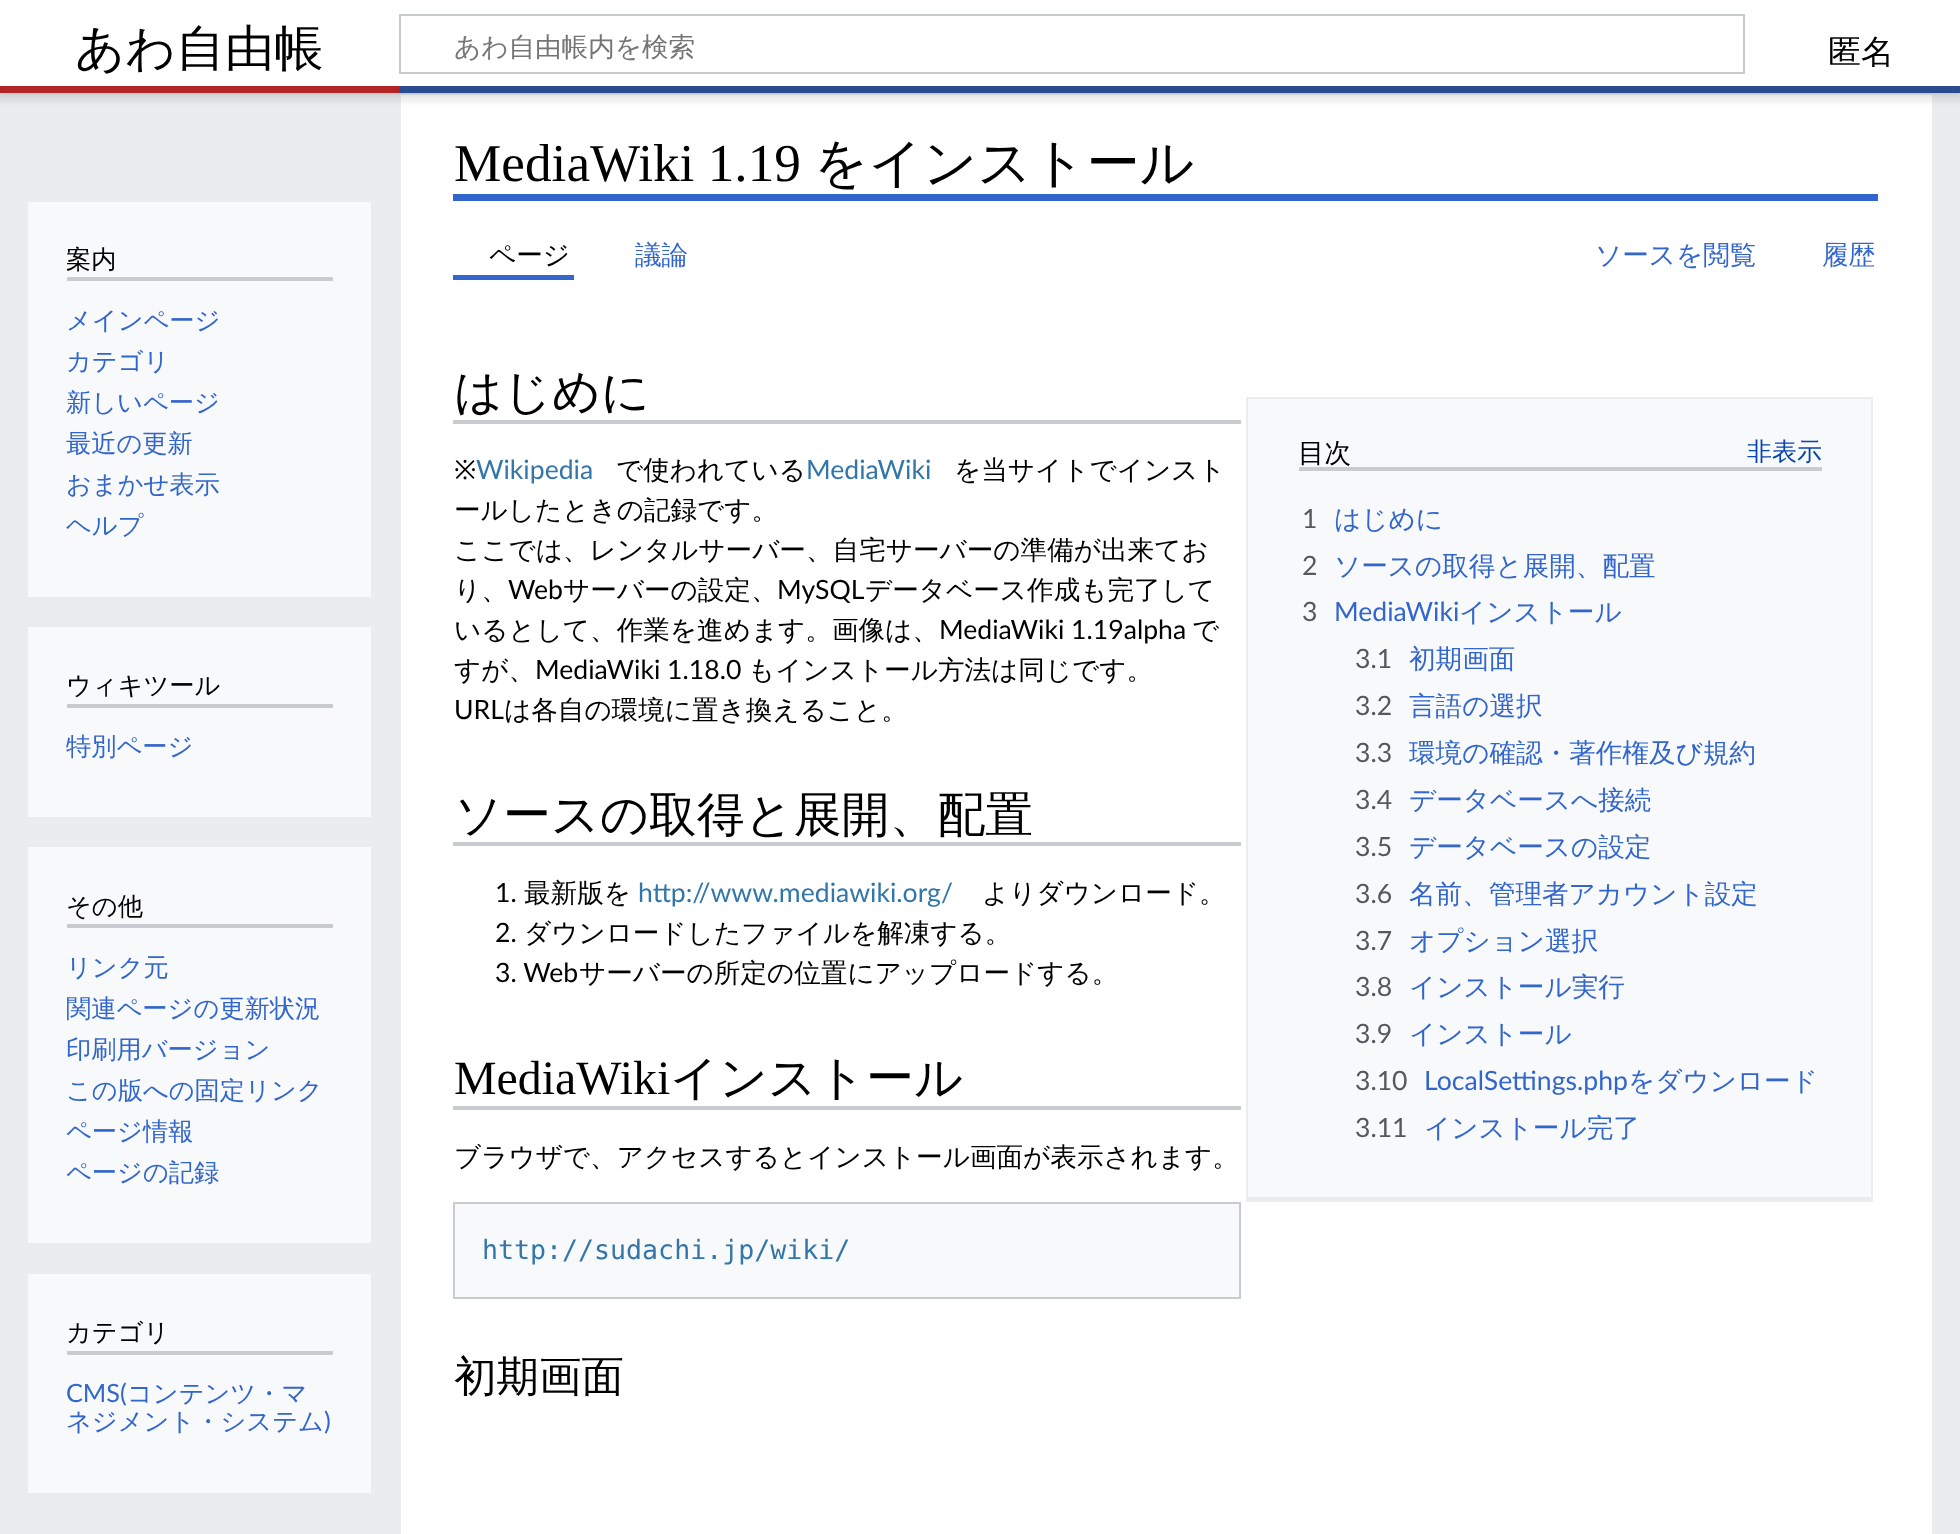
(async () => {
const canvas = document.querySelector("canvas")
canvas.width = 1960
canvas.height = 1534
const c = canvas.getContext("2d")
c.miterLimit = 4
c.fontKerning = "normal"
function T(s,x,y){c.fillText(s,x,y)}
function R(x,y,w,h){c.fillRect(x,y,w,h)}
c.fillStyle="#eaecf0"
R(0,0,1960,1534)
c.fillStyle="#fff"
R(401,95,1531,1439)
c.fillStyle="#00000033"
c.filter="blur(2px)"
c.beginPath()
c.rect(0,84,1960,9)
c.fill()
c.filter="none"
c.fillStyle="#00000012"
c.filter="blur(2.5px)"
c.beginPath()
c.rect(-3,86,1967,16)
c.fill()
c.filter="none"
c.fillStyle="#fff"
R(0,0,1960,86)
c.font="500 49.25px WenQuanYi Zen Hei"
c.fillStyle="#000"
T("あわ自由帳",75,65)
c.strokeStyle="#c8ccd1"
c.lineWidth=2
c.strokeRect(400,15,1344,58)
c.font="500 26.6px WenQuanYi Zen Hei"
c.fillStyle="#757575"
T("あわ自由帳内を検索",454,56)
c.font="500 33px WenQuanYi Zen Hei"
c.fillStyle="#000"
T("匿名",1828,63)
c.fillStyle="#b32424"
R(0,86,399,7)
c.fillStyle="#2a4b8d"
R(399,86,1561,7)
c.fillStyle="#f8f9fa"
R(28,202,343,395)
c.fillStyle="#c8ccd1"
R(67,277,266,4)
c.font="500 25.25px WenQuanYi Zen Hei"
c.fillStyle="#000"
T("案内",66,268)
c.fillStyle="#36c"
T("メインページ",66,329)
T("カテゴリ",66,370)
T("新しいページ",66,411)
T("最近の更新",66,452)
T("おまかせ表示",66,493)
T("ヘルプ",66,534)
c.fillStyle="#f8f9fa"
R(28,627,343,190)
c.fillStyle="#c8ccd1"
R(67,704,266,4)
c.fillStyle="#000"
T("ウィキツール",66,694)
c.fillStyle="#36c"
T("特別ページ",66,755)
R(453,194,1425,7)
c.font="53.25px Liberation Serif"
c.fillStyle="#000"
T("MediaWiki 1.19",454,181)
c.font="500 53.25px WenQuanYi Zen Hei"
T("をインストール",814,181)
c.fillStyle="#36c"
R(453,275,121,5)
c.font="500 26.6px WenQuanYi Zen Hei"
c.fillStyle="#000"
T("ページ",489,264)
c.fillStyle="#36c"
T("議論",635,264)
T("ソースを閲覧",1595,264)
T("履歴",1822,264)
c.fillStyle="#c8ccd1"
R(453,420,788,4)
c.font="500 47.9px WenQuanYi Zen Hei"
c.fillStyle="#000"
T("はじめに",454,408)
c.font="26.6px Noto Sans"
T("※",454,479)
c.font="26.6px Lato"
c.fillStyle="#37a"
T("Wikipedia",476,479)
c.font="500 26.6px WenQuanYi Zen Hei"
c.fillStyle="#000"
T("で使われている",616,479)
c.font="26.6px Lato"
c.fillStyle="#37a"
T("MediaWiki",806,479)
c.font="500 26.6px WenQuanYi Zen Hei"
c.fillStyle="#000"
T("を当サイトでインスト",954,479)
T("ールしたときの記録です。",454,519)
T("ここでは、レンタルサーバー、自宅サーバーの準備が出来てお",454,559)
T("り、",454,599)
c.font="26.6px Lato"
T("Web",508,599)
c.font="500 26.6px WenQuanYi Zen Hei"
T("サーバーの設定、",563,599)
c.font="26.6px Lato"
T("MySQL",777,599)
c.font="500 26.6px WenQuanYi Zen Hei"
T("データベース作成も完了して",865,599)
T("いるとして、作業を進めます。画像は、",454,639)
c.font="26.6px Lato"
T("MediaWiki 1.19alpha",939,639)
c.font="500 26.6px WenQuanYi Zen Hei"
T("で",1192,639)
T("すが、",454,679)
c.font="26.6px Lato"
T("MediaWiki 1.18.0",535,679)
c.font="500 26.6px WenQuanYi Zen Hei"
T("もインストール方法は同じです。",748,679)
c.font="26.6px Lato"
T("URL",454,719)
c.font="500 26.6px WenQuanYi Zen Hei"
T("は各自の環境に置き換えること。",504,719)
c.fillStyle="#f8f9fa"
R(1248,399,623,798)
c.fillStyle="#eaecf0"
R(1246,397,627,2)
R(1871,397,2,805)
R(1246,1197,627,5)
R(1246,397,2,805)
c.fillStyle="#c8ccd1"
R(1299,467,523,4)
c.fillStyle="#000"
T("目次",1298,462)
c.font="500 25px WenQuanYi Zen Hei"
c.fillStyle="#0645ad"
T("非表示",1747,460)
c.font="26.6px Lato"
c.fillStyle="#54595d"
T("1",1302,528)
c.font="500 26.6px WenQuanYi Zen Hei"
c.fillStyle="#36c"
T("はじめに",1334,528)
c.font="26.6px Lato"
c.fillStyle="#54595d"
T("2",1302,575)
c.font="500 26.6px WenQuanYi Zen Hei"
c.fillStyle="#36c"
T("ソースの取得と展開、配置",1334,575)
c.font="26.6px Lato"
c.fillStyle="#54595d"
T("3",1302,621)
c.fillStyle="#36c"
T("MediaWiki",1334,621)
c.font="500 26.6px WenQuanYi Zen Hei"
T("インストール",1459,621)
c.font="26.6px Lato"
c.fillStyle="#54595d"
T("3.1",1355,668)
c.font="500 26.6px WenQuanYi Zen Hei"
c.fillStyle="#36c"
T("初期画面",1409,668)
c.font="26.6px Lato"
c.fillStyle="#54595d"
T("3.2",1355,715)
c.font="500 26.6px WenQuanYi Zen Hei"
c.fillStyle="#36c"
T("言語の選択",1409,715)
c.font="26.6px Lato"
c.fillStyle="#54595d"
T("3.3",1355,762)
c.font="500 26.6px WenQuanYi Zen Hei"
c.fillStyle="#36c"
T("環境の確認・著作権及び規約",1409,762)
c.font="26.6px Lato"
c.fillStyle="#54595d"
T("3.4",1355,809)
c.font="500 26.6px WenQuanYi Zen Hei"
c.fillStyle="#36c"
T("データベースへ接続",1409,809)
c.font="26.6px Lato"
c.fillStyle="#54595d"
T("3.5",1355,856)
c.font="500 26.6px WenQuanYi Zen Hei"
c.fillStyle="#36c"
T("データベースの設定",1409,856)
c.font="26.6px Lato"
c.fillStyle="#54595d"
T("3.6",1355,903)
c.font="500 26.6px WenQuanYi Zen Hei"
c.fillStyle="#36c"
T("名前、管理者アカウント設定",1409,903)
c.font="26.6px Lato"
c.fillStyle="#54595d"
T("3.7",1355,950)
c.font="500 26.6px WenQuanYi Zen Hei"
c.fillStyle="#36c"
T("オプション選択",1409,950)
c.font="26.6px Lato"
c.fillStyle="#54595d"
T("3.8",1355,996)
c.font="500 26.6px WenQuanYi Zen Hei"
c.fillStyle="#36c"
T("インストール実行",1409,996)
c.font="26.6px Lato"
c.fillStyle="#54595d"
T("3.9",1355,1043)
c.font="500 26.6px WenQuanYi Zen Hei"
c.fillStyle="#36c"
T("インストール",1409,1043)
c.font="26.6px Lato"
c.fillStyle="#54595d"
T("3.10",1355,1090)
c.fillStyle="#36c"
T("LocalSettings.php",1424,1090)
c.font="500 26.6px WenQuanYi Zen Hei"
T("をダウンロード",1628,1090)
c.font="26.6px Lato"
c.fillStyle="#54595d"
T("3.11",1355,1137)
c.font="500 26.6px WenQuanYi Zen Hei"
c.fillStyle="#36c"
T("インストール完了",1424,1137)
c.fillStyle="#c8ccd1"
R(453,842,788,4)
c.font="500 47.9px WenQuanYi Zen Hei"
c.fillStyle="#000"
T("ソースの取得と展開、配置",454,831)
c.font="26.6px Lato"
T("1.",495,902)
c.font="500 26.6px WenQuanYi Zen Hei"
T("最新版を",524,902)
c.font="26.6px Lato"
c.fillStyle="#37a"
T("http://www.mediawiki.org/",638,902)
c.font="500 26.6px WenQuanYi Zen Hei"
c.fillStyle="#000"
T("よりダウンロード。",982,902)
c.font="26.6px Lato"
T("2.",495,942)
c.font="500 26.6px WenQuanYi Zen Hei"
T("ダウンロードしたファイルを解凍する。",524,942)
c.font="26.6px Lato"
T("3. Web",495,982)
c.font="500 26.6px WenQuanYi Zen Hei"
T("サーバーの所定の位置にアップロードする。",579,982)
c.fillStyle="#c8ccd1"
R(453,1106,788,4)
c.font="47.9px Liberation Serif"
c.fillStyle="#000"
T("MediaWiki",454,1094)
c.font="500 47.9px WenQuanYi Zen Hei"
T("インストール",670,1094)
c.font="500 26.6px WenQuanYi Zen Hei"
T("ブラウザで、アクセスするとインストール画面が表示されます。",454,1166)
c.fillStyle="#f8f9fa"
c.beginPath()
c.rect(454,1203,786,95)
c.fill()
c.stroke()
c.font="26.6px DejaVu Sans Mono"
c.fillStyle="#37a"
T("http://sudachi.jp/wiki/",482,1259)
c.font="500 42.5px WenQuanYi Zen Hei"
c.fillStyle="#000"
T("初期画面",454,1391)
c.fillStyle="#f8f9fa"
R(28,847,343,396)
c.fillStyle="#c8ccd1"
R(67,924,266,4)
c.font="500 25.25px WenQuanYi Zen Hei"
c.fillStyle="#000"
T("その他",66,915)
c.fillStyle="#36c"
T("リンク元",66,976)
T("関連ページの更新状況",66,1017)
T("印刷用バージョン",66,1058)
T("この版への固定リンク",66,1099)
T("ページ情報",66,1140)
T("ページの記録",66,1181)
c.fillStyle="#f8f9fa"
R(28,1274,343,219)
c.fillStyle="#c8ccd1"
R(67,1351,266,4)
c.fillStyle="#000"
T("カテゴリ",66,1341)
c.font="25.25px Lato"
c.fillStyle="#36c"
T("CMS(",66,1402)
c.font="500 25.25px WenQuanYi Zen Hei"
T("コンテンツ・マ",127,1402)
T("ネジメント・システム",66,1430)
c.font="25.25px Lato"
T(")",324,1430)
})()
